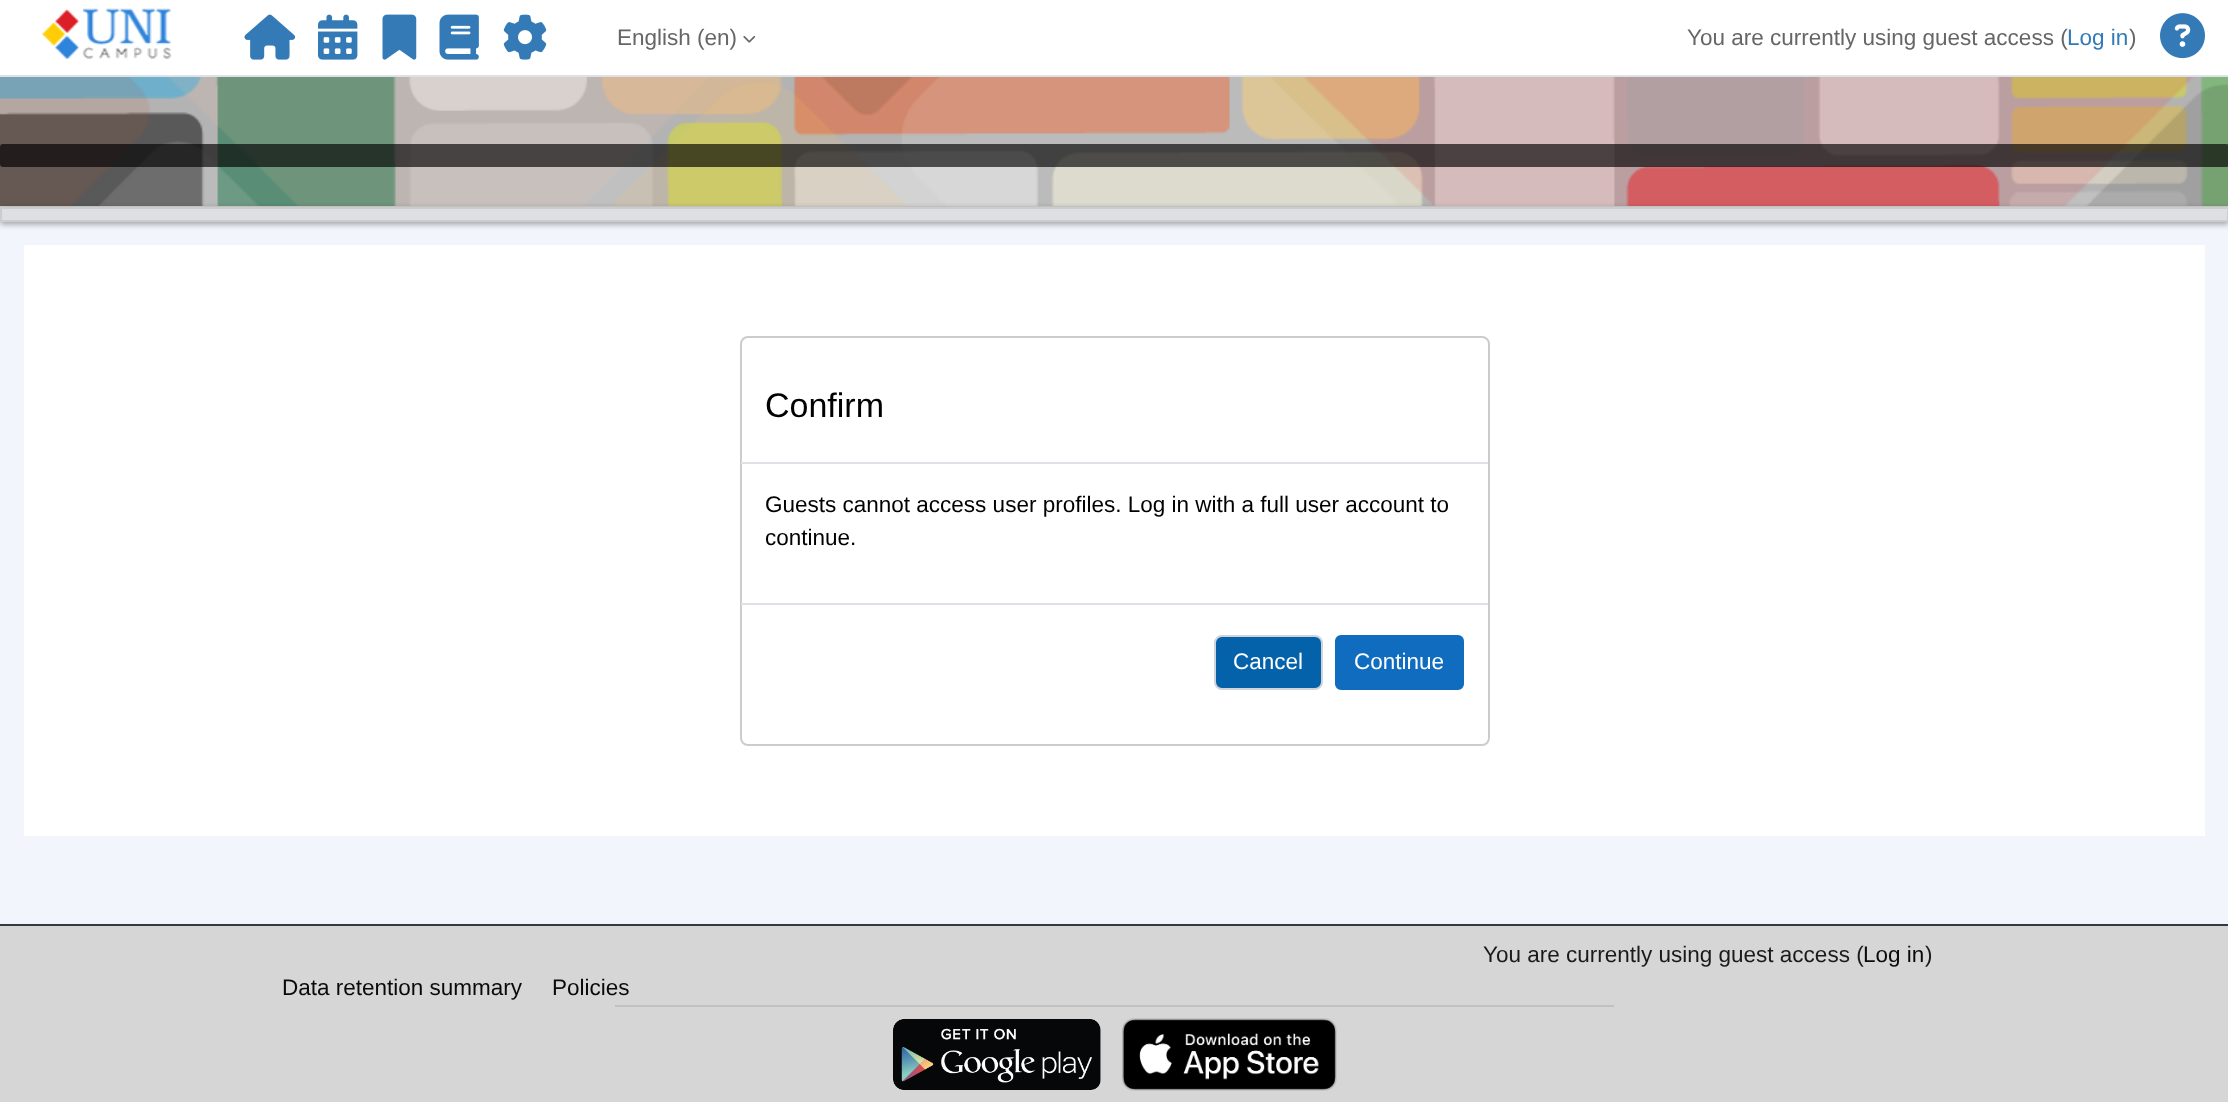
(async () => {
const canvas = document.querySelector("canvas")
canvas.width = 2228
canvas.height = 1102
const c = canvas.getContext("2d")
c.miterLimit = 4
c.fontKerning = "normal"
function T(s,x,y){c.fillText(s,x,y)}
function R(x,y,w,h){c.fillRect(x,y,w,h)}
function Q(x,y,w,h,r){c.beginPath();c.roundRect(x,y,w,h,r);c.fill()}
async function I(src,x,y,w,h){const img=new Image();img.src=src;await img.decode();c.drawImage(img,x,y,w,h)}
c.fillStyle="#f2f5fb"
R(0,0,2228,1102)
c.fillStyle="#fff"
R(0,0,2228,75)
c.fillStyle="#dee2e6"
R(0,75,2228,2)
await I("1.png",42,8,130,51)
await I("2.png",244,14,52,46)
await I("3.png",318,14,40,46)
await I("4.png",382,14,35,46)
await I("5.png",439,14,40,46)
await I("6.png",503,14,44,46)
c.font="22.5px Liberation Sans"
c.fillStyle="#666"
T("English (en)",617,45)
await I("7.png",743,36,13,7)
T("You are currently using guest access (",1687,45)
c.fillStyle="#337ab7"
T("Log in",2067,45)
c.fillStyle="#666"
T(")",2129,45)
await I("8.png",2160,13,45,46)
await I("9.png",0,77,2228,129)
c.fillStyle="#d3d3d3"
R(0,206,2228,1)
c.fillStyle="#000000a6"
Q(0,144,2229,23,3)
c.fillStyle="#0000005e"
c.filter="blur(3px)"
c.beginPath()
c.rect(0,209,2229,15)
c.fill()
c.filter="none"
c.fillStyle="#dce0e5"
c.beginPath()
c.rect(1,208,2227,13)
c.fill()
c.strokeStyle="#ccc"
c.lineWidth=2
c.stroke()
c.fillStyle="#fff"
R(24,245,2181,591)
c.beginPath()
c.roundRect(741,337,748,408,7)
c.stroke()
c.fillStyle="#dee2e6"
R(741,462,747,2)
c.font="34px Liberation Sans"
c.fillStyle="#000"
T("Confirm",765,417)
c.font="22.5px Liberation Sans"
T("Guests cannot access user profiles. Log in with a full user account to",765,512)
T("continue.",765,545)
c.fillStyle="#dee2e6"
R(741,603,747,2)
c.fillStyle="#0362aa"
c.beginPath()
c.roundRect(1215,636,107,53,7)
c.fill()
c.strokeStyle="#ced4da"
c.stroke()
c.fillStyle="#fff"
T("Cancel",1233,669)
c.fillStyle="#0f6cbf"
c.beginPath()
c.roundRect(1336,636,127,53,5)
c.fill()
c.strokeStyle="#0f6cbf"
c.stroke()
c.fillStyle="#fff"
T("Continue",1354,669)
c.fillStyle="#d6d6d6"
R(0,926,2228,176)
c.fillStyle="#343a40"
R(0,924,2228,2)
c.fillStyle="#1a1a1a"
T("You are currently using guest access (",1483,962)
c.fillStyle="#0a0a0a"
T("Log in",1863,962)
c.fillStyle="#1a1a1a"
T(")",1925,962)
c.fillStyle="#0a0a0a"
T("Data retention summary",282,995)
T("Policies",552,995)
c.fillStyle="#c1c1c1"
R(615,1005,999,2)
await I("10.png",892,1018,209,73)
await I("11.png",1122,1018,215,73)
})()
